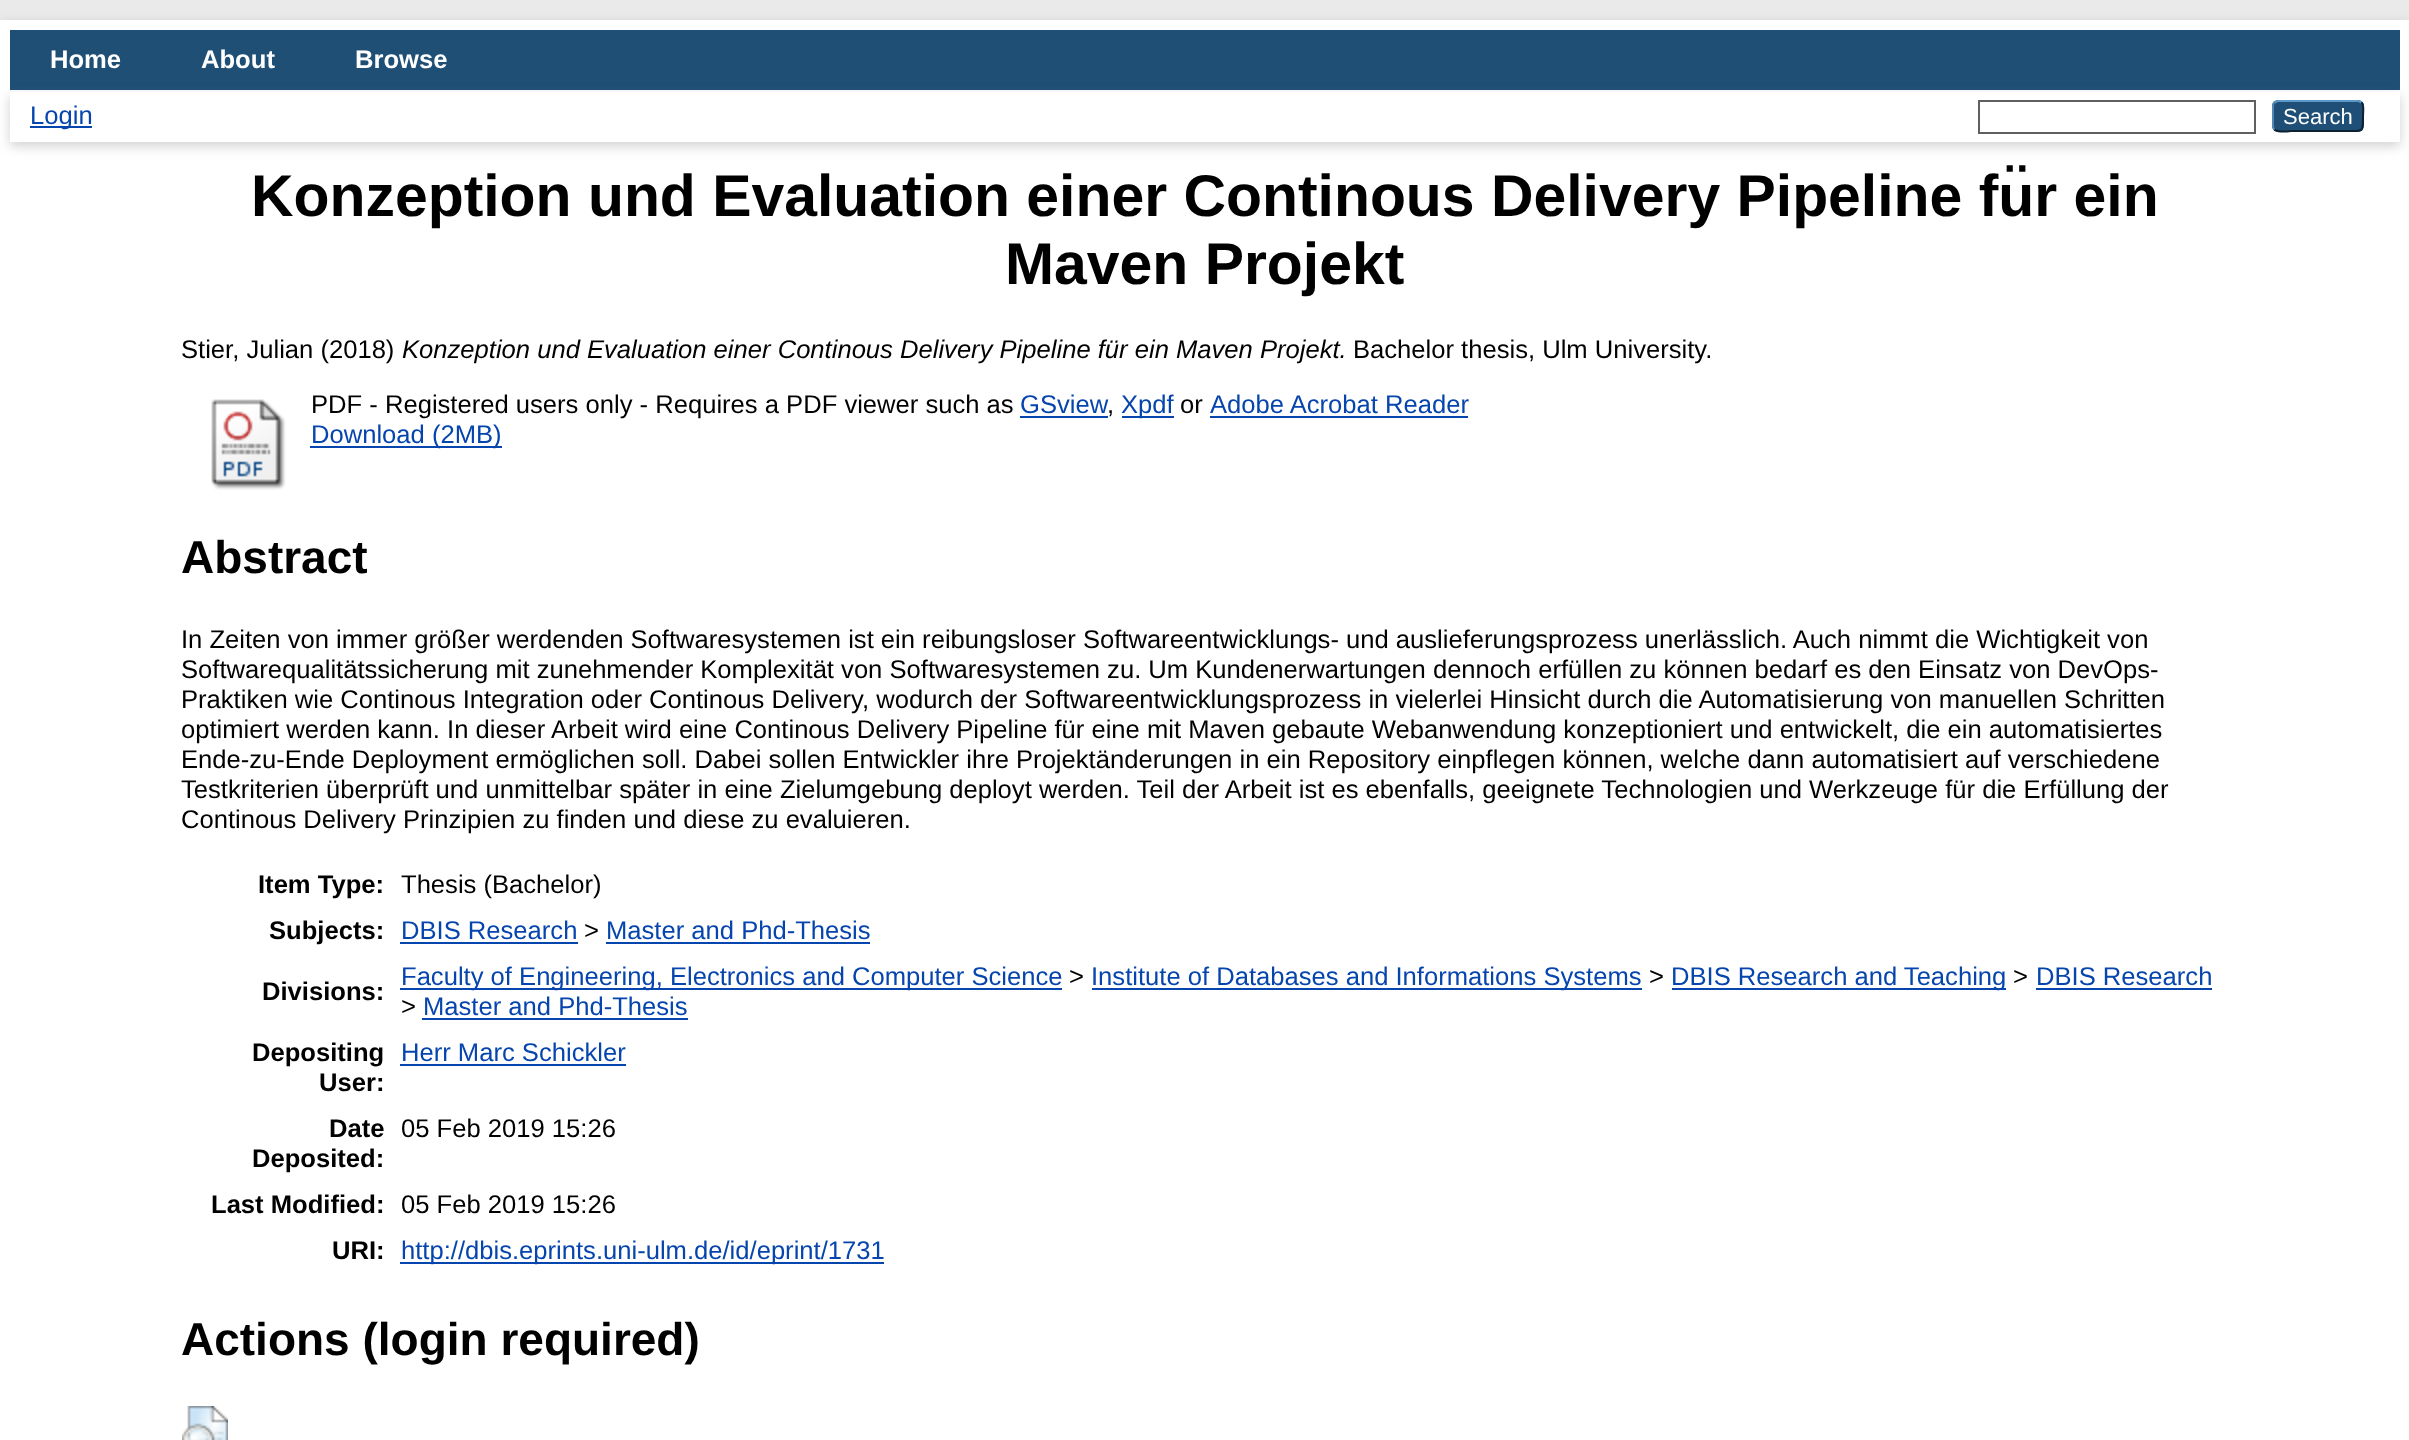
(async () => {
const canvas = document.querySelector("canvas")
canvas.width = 2409
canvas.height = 1440
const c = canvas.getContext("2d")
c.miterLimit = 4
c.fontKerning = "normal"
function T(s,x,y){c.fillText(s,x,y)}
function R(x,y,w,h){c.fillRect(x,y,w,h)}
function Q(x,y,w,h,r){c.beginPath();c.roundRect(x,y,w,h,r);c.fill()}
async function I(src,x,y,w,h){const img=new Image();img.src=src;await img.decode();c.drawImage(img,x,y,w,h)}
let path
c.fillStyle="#eaeaea"
R(0,0,2409,1440)
c.fillStyle="#6464644d"
c.filter="blur(6px)"
c.beginPath()
c.rect(0,24,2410,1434)
c.fill()
c.filter="none"
c.fillStyle="#fff"
R(0,20,2409,1420)
c.fillStyle="#204f76"
R(10,30,2390,60)
c.font="bold 25.6px Liberation Sans"
c.fillStyle="#fff"
T("Home",50,68)
T("About",201,68)
T("Browse",355,68)
c.fillStyle="#6464644d"
c.filter="blur(6px)"
c.beginPath()
c.rect(10,96,2390,50)
c.fill()
c.filter="none"
c.fillStyle="#fff"
R(10,92,2390,50)
c.fillStyle="#0645ad"
R(30,126,62,2)
c.font="25.6px Liberation Sans"
T("Login",30,124)
c.strokeStyle="#606060"
c.lineWidth=2
c.strokeRect(1979,101,276,32)
c.fillStyle="#1f4f76"
Q(2272,100,92,32,6)
path = new Path2D("M2274.5 102.5l3-1.5h81l3 1.5")
c.strokeStyle="#5b97c7"
c.stroke(path)
path = new Path2D("M2361.5 102.5c3 2.5 1.5 10 1.5 13.5c0 17.5 .5 15-18.5 15h-53c-.5 0-13.5 2-17-1.5")
c.strokeStyle="#0d2131"
c.stroke(path)
path = new Path2D("M2274.5 129.5c-1-1-1.5-2-1.5-3.5v-20c0-1.5 .5-2.5 1.5-3.5")
c.strokeStyle="#5287b3"
c.stroke(path)
c.font="22px Liberation Sans"
c.fillStyle="#fff"
T("Search",2283,124)
c.font="bold 58.9px Liberation Sans"
c.fillStyle="#000"
T("Konzeption und Evaluation einer Continous Delivery Pipeline für ein",251,216)
T("Maven Projekt",1005,284)
c.font="25.6px Liberation Sans"
T("Stier, Julian (2018)",181,358)
c.font="italic 25.6px Liberation Sans"
T("Konzeption und Evaluation einer Continous Delivery Pipeline für ein Maven Projekt.",402,358)
c.font="25.6px Liberation Sans"
T("Bachelor thesis, Ulm University.",1353,358)
await I("1.png",211,399,75,91)
T("PDF - Registered users only - Requires a PDF viewer such as",311,413)
c.fillStyle="#0645ad"
T("GSview",1020,413)
R(1020,416,88,2)
c.fillStyle="#000"
T(",",1107,413)
c.fillStyle="#0645ad"
R(1122,416,52,2)
T("Xpdf",1121,413)
c.fillStyle="#000"
T("or",1180,413)
c.fillStyle="#0645ad"
T("Adobe Acrobat Reader",1210,413)
R(1210,416,258,2)
R(310,446,192,2)
T("Download (2MB)",311,443)
c.font="bold 46px Liberation Sans"
c.fillStyle="#000"
T("Abstract",181,573)
c.font="25.6px Liberation Sans"
T("In Zeiten von immer größer werdenden Softwaresystemen ist ein reibungsloser Softwareentwicklungs- und auslieferungsprozess unerlässlich. Auch nimmt die Wichtigkeit von",181,648)
T("Softwarequalitätssicherung mit zunehmender Komplexität von Softwaresystemen zu. Um Kundenerwartungen dennoch erfüllen zu können bedarf es den Einsatz von DevOps-",181,678)
T("Praktiken wie Continous Integration oder Continous Delivery, wodurch der Softwareentwicklungsprozess in vielerlei Hinsicht durch die Automatisierung von manuellen Schritten",181,708)
T("optimiert werden kann. In dieser Arbeit wird eine Continous Delivery Pipeline für eine mit Maven gebaute Webanwendung konzeptioniert und entwickelt, die ein automatisiertes",181,738)
T("Ende-zu-Ende Deployment ermöglichen soll. Dabei sollen Entwickler ihre Projektänderungen in ein Repository einpflegen können, welche dann automatisiert auf verschiedene",181,768)
T("Testkriterien überprüft und unmittelbar später in eine Zielumgebung deployt werden. Teil der Arbeit ist es ebenfalls, geeignete Technologien und Werkzeuge für die Erfüllung der",181,798)
T("Continous Delivery Prinzipien zu finden und diese zu evaluieren.",181,828)
c.font="bold 25.6px Liberation Sans"
T("Item Type:",258,893)
c.font="25.6px Liberation Sans"
T("Thesis (Bachelor)",401,893)
c.font="bold 25.6px Liberation Sans"
T("Subjects:",269,939)
c.font="25.6px Liberation Sans"
c.fillStyle="#0645ad"
T("DBIS Research",401,939)
R(400,942,178,2)
c.fillStyle="#000"
T(">",584,939)
c.fillStyle="#0645ad"
T("Master and Phd-Thesis",606,939)
R(606,942,264,2)
c.font="bold 25.6px Liberation Sans"
c.fillStyle="#000"
T("Divisions:",262,1000)
c.fillStyle="#0645ad"
R(400,988,662,2)
c.font="25.6px Liberation Sans"
T("Faculty of Engineering, Electronics and Computer Science",401,985)
c.fillStyle="#000"
T(">",1069,985)
c.fillStyle="#0645ad"
R(1092,988,550,2)
T("Institute of Databases and Informations Systems",1091,985)
c.fillStyle="#000"
T(">",1649,985)
c.fillStyle="#0645ad"
R(1672,988,334,2)
T("DBIS Research and Teaching",1671,985)
c.fillStyle="#000"
T(">",2013,985)
c.fillStyle="#0645ad"
T("DBIS Research",2036,985)
R(2036,988,176,2)
c.fillStyle="#000"
T(">",401,1015)
c.fillStyle="#0645ad"
T("Master and Phd-Thesis",423,1015)
R(422,1018,266,2)
c.font="bold 25.6px Liberation Sans"
c.fillStyle="#000"
T("Depositing",252,1061)
T("User:",319,1091)
c.font="25.6px Liberation Sans"
c.fillStyle="#0645ad"
T("Herr Marc Schickler",401,1061)
R(400,1064,226,2)
c.font="bold 25.6px Liberation Sans"
c.fillStyle="#000"
T("Date",329,1137)
T("Deposited:",252,1167)
c.font="25.6px Liberation Sans"
T("05 Feb 2019 15:26",401,1137)
c.font="bold 25.6px Liberation Sans"
T("Last Modified:",211,1213)
c.font="25.6px Liberation Sans"
T("05 Feb 2019 15:26",401,1213)
c.font="bold 25.6px Liberation Sans"
T("URI:",332,1259)
c.fillStyle="#0645ad"
R(400,1262,484,2)
c.font="25.6px Liberation Sans"
T("http://dbis.eprints.uni-ulm.de/id/eprint/1731",401,1259)
c.font="bold 46px Liberation Sans"
c.fillStyle="#000"
T("Actions (login required)",181,1355)
await I("2.png",182,1406,46,34)
})()
